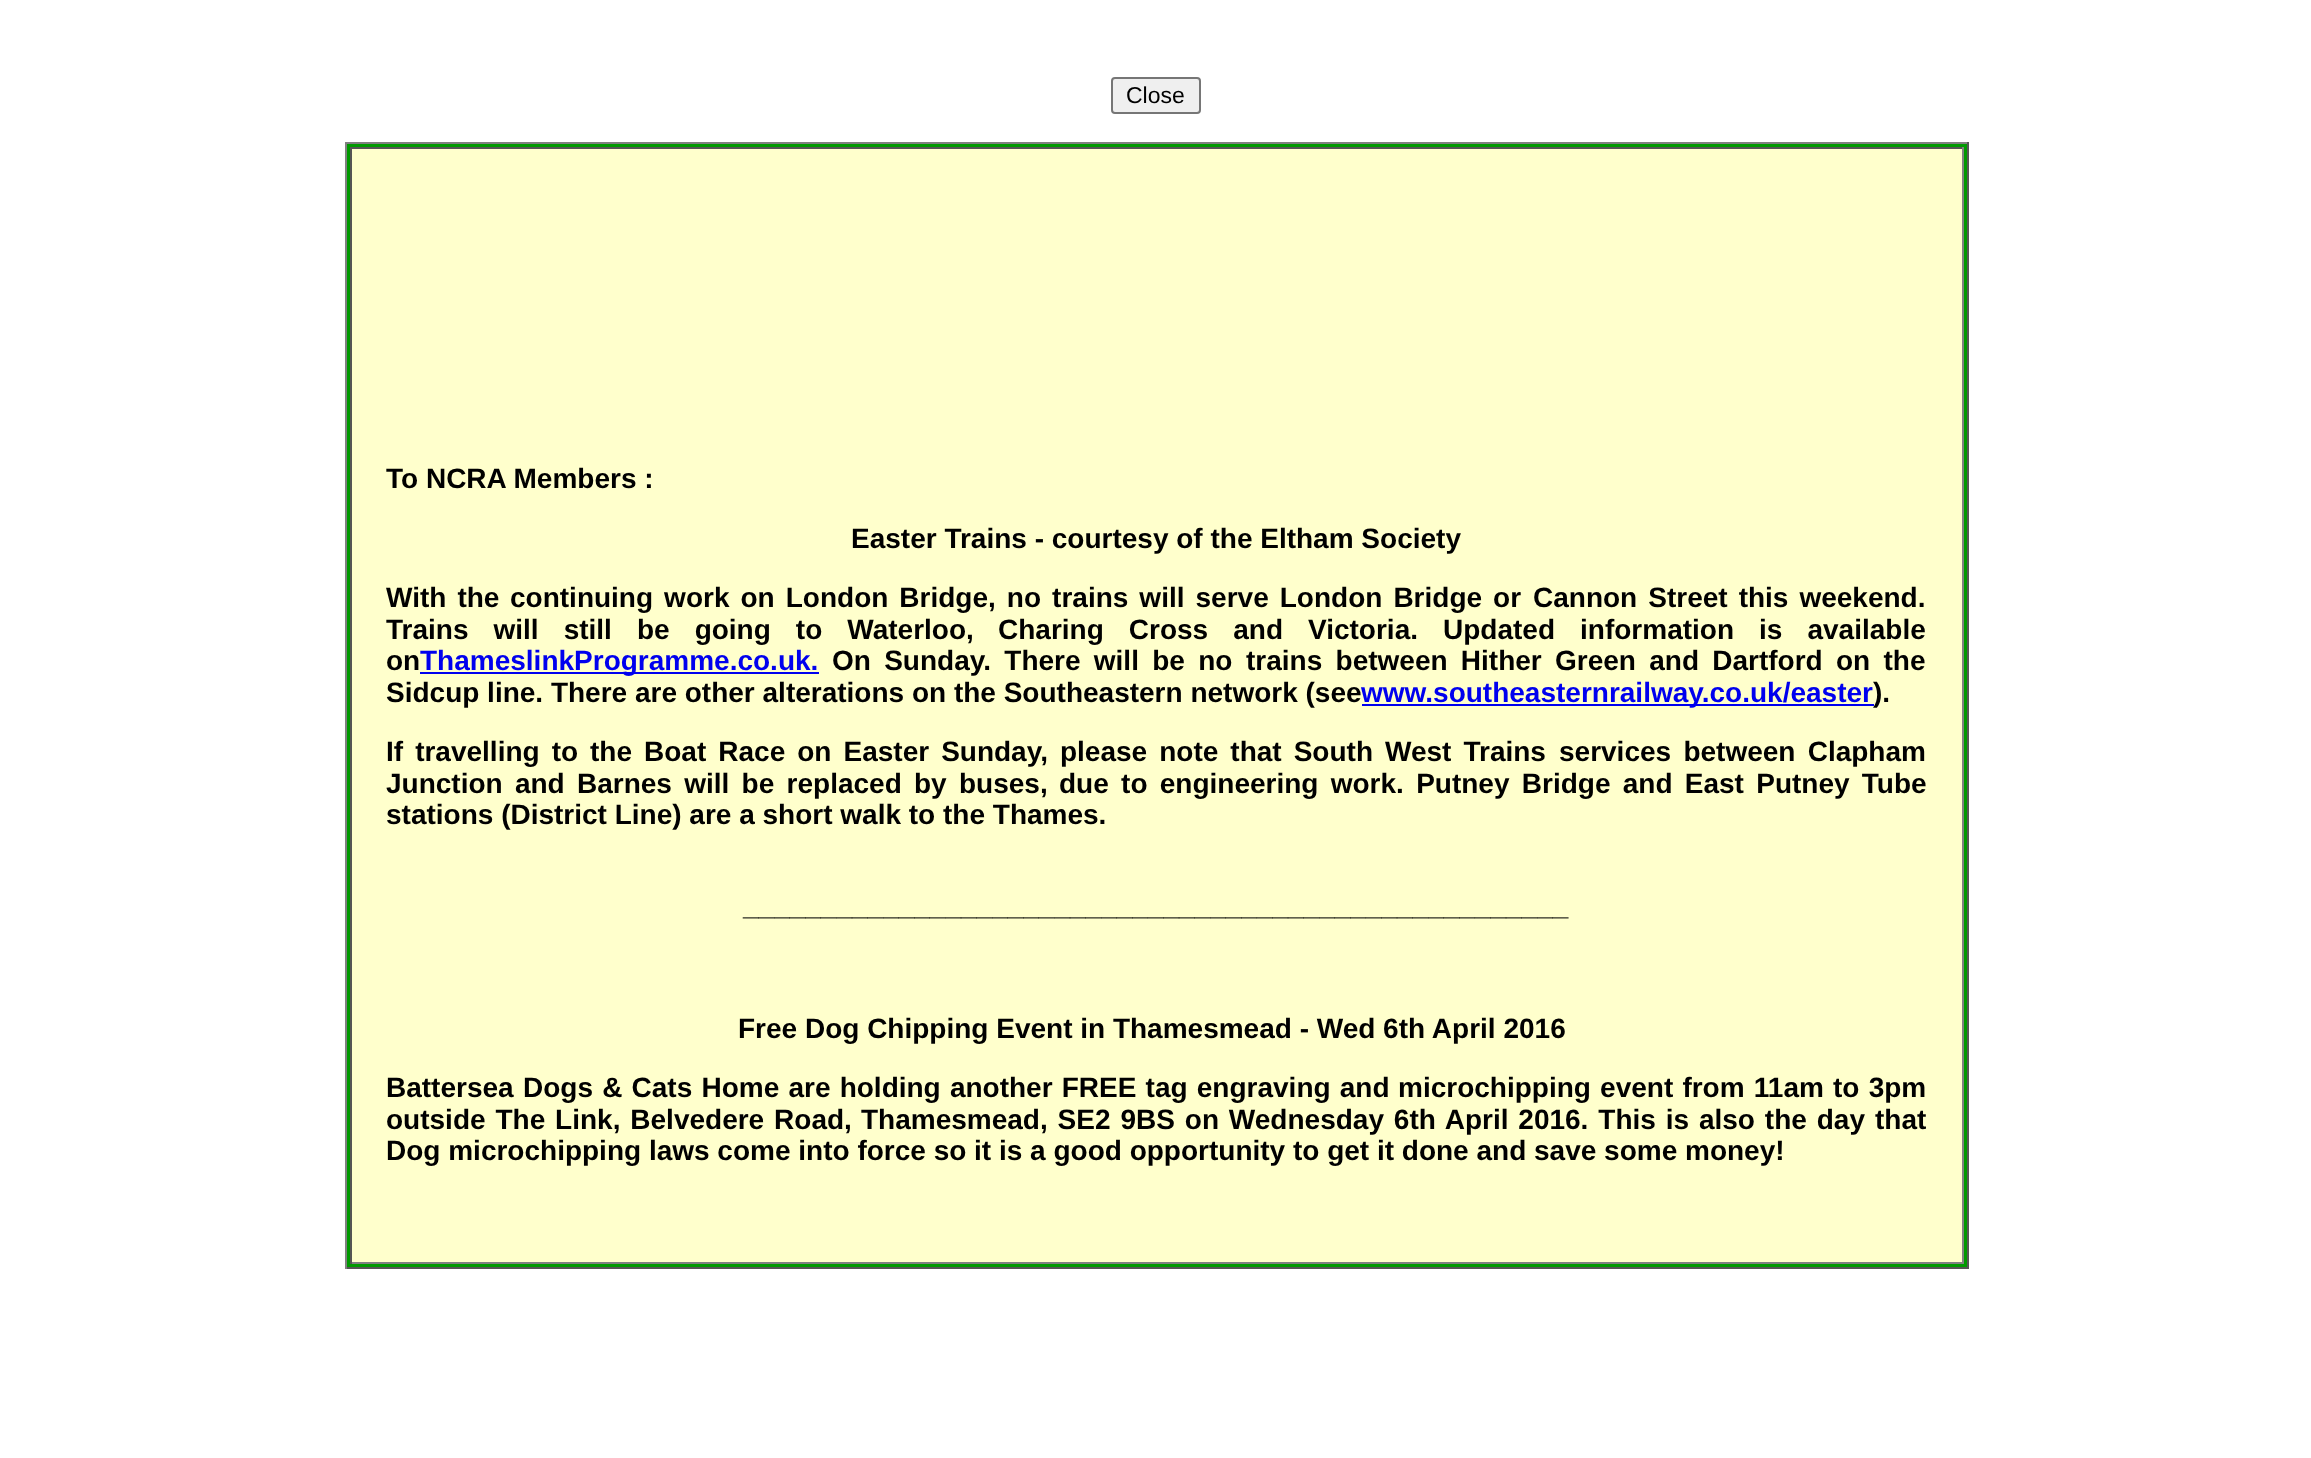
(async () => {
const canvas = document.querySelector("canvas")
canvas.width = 2311
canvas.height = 1458
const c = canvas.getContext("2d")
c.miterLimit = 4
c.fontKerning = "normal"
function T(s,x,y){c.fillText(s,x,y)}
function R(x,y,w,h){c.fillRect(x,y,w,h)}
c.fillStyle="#fff"
R(0,0,2311,1458)
c.fillStyle="#efefef"
c.beginPath()
c.roundRect(1112,78,88,35,3)
c.fill()
c.strokeStyle="#767676"
c.lineWidth=2
c.stroke()
c.font="23px Liberation Sans"
c.fillStyle="#000"
T("Close",1126,103)
c.fillStyle="#090"
R(347,144,1620,1123)
c.fillStyle="#808080"
R(345,142,1624,2)
c.fillStyle="#555"
R(1967,142,2,1127)
R(345,1267,1624,2)
c.fillStyle="#808080"
R(345,142,2,1127)
c.fillStyle="#ffc"
R(352,149,1610,1113)
c.fillStyle="#555"
R(350,147,1614,2)
c.fillStyle="#808080"
R(1962,147,2,1117)
R(350,1262,1614,2)
c.fillStyle="#555"
R(350,147,2,1117)
c.font="bold 28px Liberation Sans"
c.fillStyle="#000"
T("To NCRA Members :",386,488)
T("Easter Trains - courtesy of the Eltham Society",851,548)
c.wordSpacing="3.25px"
T("With the",386,607)
T("continuing work on London Bridge, no trains will serve London Bridge or",510,607)
T("Cannon Street this weekend.",1533,607)
c.wordSpacing="17.25px"
T("Trains will still be going to Waterloo,",386,639)
T("Charing Cross and Victoria. Updated information is available",998,639)
c.wordSpacing="0px"
T("on",386,670)
c.fillStyle="#00e"
R(420,672,399,2)
T("ThameslinkProgramme.co.uk.",420,670)
c.wordSpacing="5.5px"
c.fillStyle="#000"
T("On Sunday. There will be no",832,670)
T("trains between Hither Green and Dartford on the",1246,670)
c.wordSpacing="0px"
T("Sidcup line. There are other alterations on the Southeastern network (see",386,702)
c.fillStyle="#00e"
R(1362,704,512,2)
T("www.southeasternrailway.co.uk/easter",1361,702)
c.fillStyle="#000"
T(").",1873,702)
c.wordSpacing="4.25px"
T("If travelling to",386,761)
T("the Boat Race on Easter Sunday, please note that South West Trains",590,761)
c.wordSpacing="4.5px"
T("services between Clapham",1559,761)
T("Junction and Barnes will be replaced by buses,",386,793)
T("due to engineering work. Putney Bridge and East Putney Tube",1059,793)
c.wordSpacing="0px"
T("stations (District Line) are a short walk to the Thames.",386,824)
T("_____________________________________________________",743,915)
T("Free Dog Chipping Event in Thamesmead - Wed 6th April 2016",738,1038)
T("Battersea",386,1097)
c.wordSpacing="1.4px"
T("Dogs & Cats Home are holding another FREE tag engraving and",523,1097)
T("microchipping event from 11am to 3pm",1398,1097)
c.wordSpacing="2.1px"
T("outside The Link, Belvedere Road,",386,1129)
T("Thamesmead, SE2 9BS on Wednesday 6th April 2016. This is also the day",861,1129)
c.wordSpacing="0px"
T("that",1875,1129)
T("Dog microchipping laws come into force so it is a good opportunity to get it done and save some money!",386,1160)
})()
